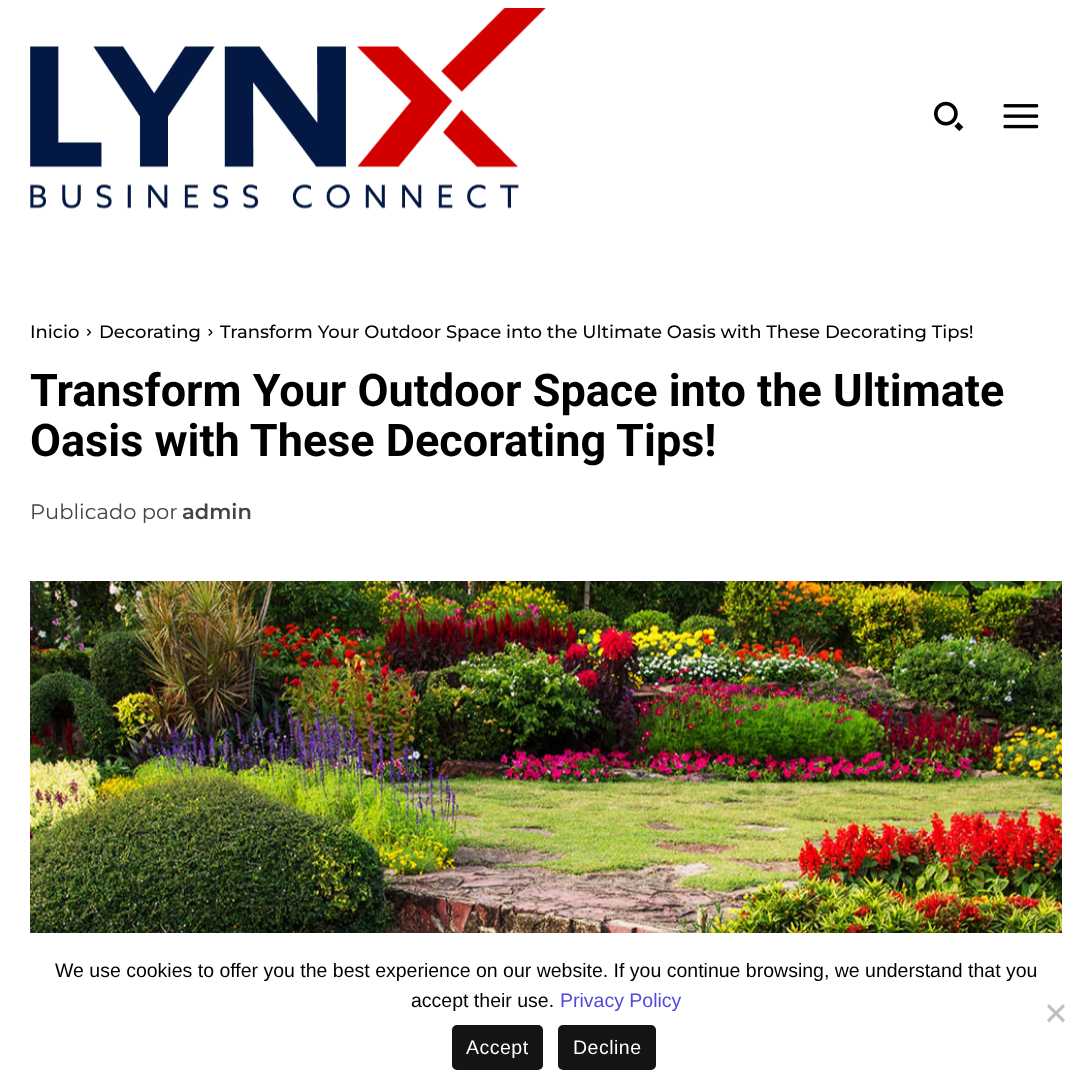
(async () => {
const canvas = document.querySelector("canvas")
canvas.width = 1091
canvas.height = 1091
const c = canvas.getContext("2d")
c.miterLimit = 4
c.fontKerning = "normal"
function T(s,x,y){c.fillText(s,x,y)}
function R(x,y,w,h){c.fillRect(x,y,w,h)}
function Q(x,y,w,h,r){c.beginPath();c.roundRect(x,y,w,h,r);c.fill()}
async function I(src,x,y,w,h){const img=new Image();img.src=src;await img.decode();c.drawImage(img,x,y,w,h)}
let path
c.fillStyle="#fff"
R(0,0,1091,1091)
await I("1.png",30,8,516,201)
await I("2.png",934,101,30,30)
await I("3.png",1003,104,36,25)
c.font="500 18px Montserrat"
c.fillStyle="#000"
T("Inicio",30,338)
await I("4.png",87,328,4,8)
T("Decorating",99,338)
await I("5.png",208,328,5,8)
T("Transform Your Outdoor Space into the Ultimate Oasis with These Decorating Tips!",220,338)
c.font="bold 45px Roboto"
T("Transform Your Outdoor Space into the Ultimate",30,406)
T("Oasis with These Decorating Tips!",30,456)
c.font="21px Montserrat"
c.fillStyle="#444"
T("Publicado por",30,519)
c.font="600 21px Montserrat"
T("admin",182,519)
await I("6.png",30,581,1032,352)
c.font="19.5px Liberation Sans"
c.fillStyle="#000"
T("We use cookies to offer you the best experience on our website. If you continue browsing, we understand that you",55,977)
T("accept their use.",411,1007)
c.fillStyle="#504bdc"
T("Privacy Policy",560,1007)
c.fillStyle="#c0c0c0"
path = new Path2D("M1063 1004l2 2.5l-16 16l-2-2.5z")
c.fill(path)
path = new Path2D("M1047 1006.5l2-2.5l16 16l-2 2.5z")
c.fill(path)
c.fillStyle="#141414"
Q(452,1025,91,45,5)
c.letterSpacing="0.5px"
c.fillStyle="#fff"
T("Accept",466,1054)
c.fillStyle="#141414"
Q(558,1025,98,45,5)
c.fillStyle="#fff"
T("Decline",573,1054)
})()
